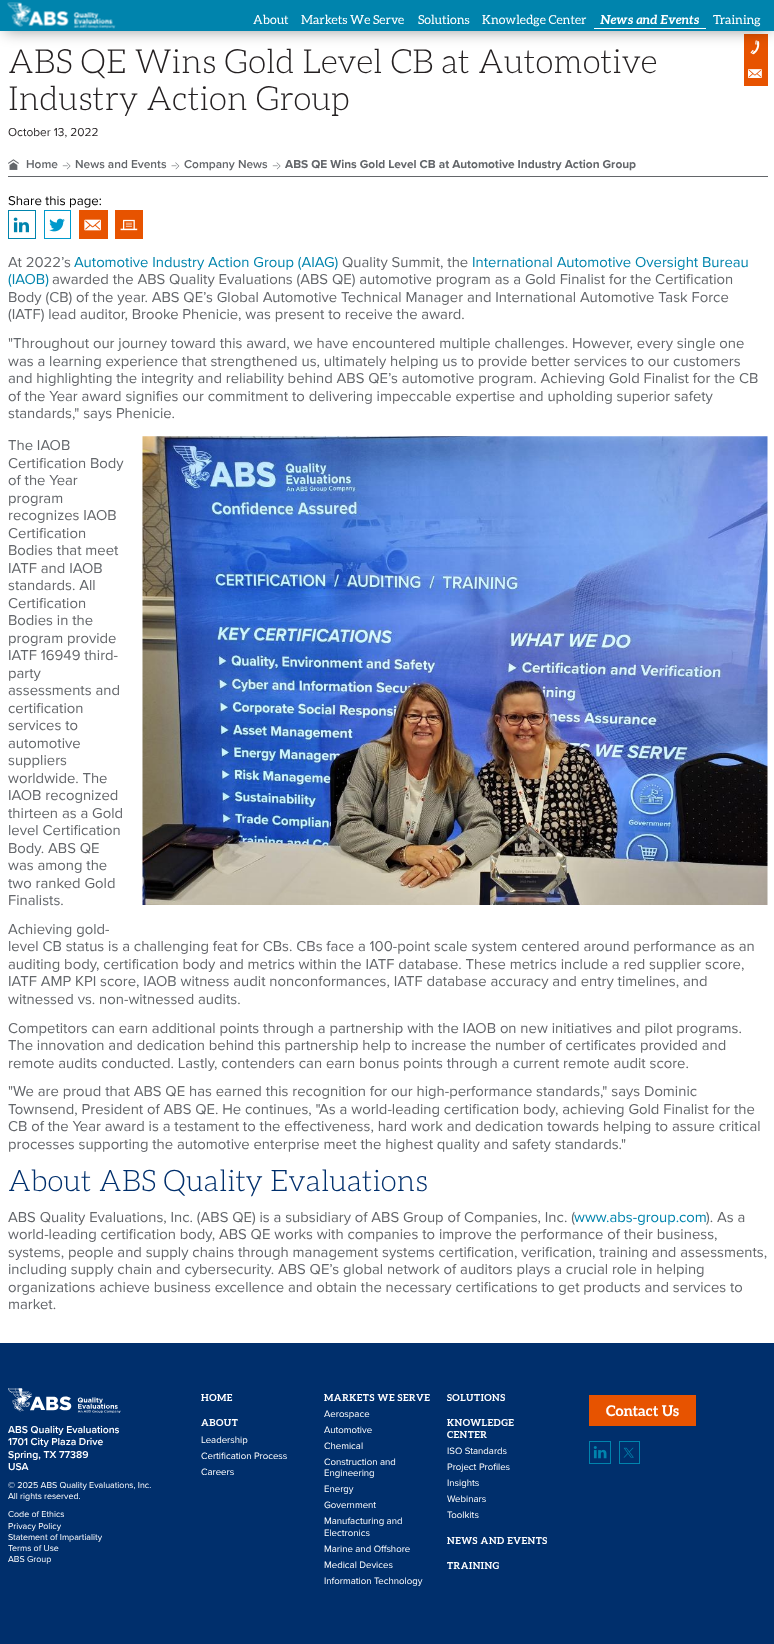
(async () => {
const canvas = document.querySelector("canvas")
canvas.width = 774
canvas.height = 1644
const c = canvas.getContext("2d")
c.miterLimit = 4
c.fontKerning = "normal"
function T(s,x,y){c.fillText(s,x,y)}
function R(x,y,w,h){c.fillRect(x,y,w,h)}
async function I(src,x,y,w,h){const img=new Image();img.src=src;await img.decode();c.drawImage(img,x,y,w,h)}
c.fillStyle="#fff"
R(0,0,774,1644)
c.fillStyle="#e75300"
R(744,34,24,52)
await I("2.png",750,40,10,15)
c.fillStyle="#00000066"
c.filter="blur(7.5px)"
c.beginPath()
c.rect(5,9,765,22)
c.fill()
c.filter="none"
c.fillStyle="#0084ad"
R(0,0,774,31)
await I("1.png",7,2,109,27)
c.font="12.5px Aleo"
c.fillStyle="#fff"
T("About",253,24)
T("Markets We Serve",301,24)
T("Solutions",418,24)
T("Knowledge Center",482,24)
c.font="italic bold 12.5px aleo"
T("News and Events",600,24)
R(594,28,112,1)
c.font="12.5px Aleo"
T("Training",713,24)
await I("3.png",748,69,14,9)
c.font="300 33.4px aleo"
c.fillStyle="#231f20"
T("ABS QE Wins Gold Level CB at Automotive",8,73)
T("Industry Action Group",8,110)
c.font="11.9px Proxima Nova"
T("October 13, 2022",8,136)
c.fillStyle="#63666a"
R(8,176,760,1)
await I("4.png",8,159,11,11)
c.font="600 11.9px Proxima Nova"
T("Home",26,168)
await I("5.png",62,162,9,8)
T("News and Events",75,168)
await I("6.png",171,162,9,8)
T("Company News",184,168)
await I("5.png",272,162,9,8)
c.font="bold 11.9px Proxima Nova"
T("ABS QE Wins Gold Level CB at Automotive Industry Action Group",285,168)
c.font="13.25px Proxima Nova"
c.fillStyle="#000"
T("Share this page:",8,205)
c.strokeStyle="#0084ad"
c.strokeRect(8.5,210.5,27,28)
await I("7.png",13,217,16,16)
c.strokeStyle="#09c"
c.strokeRect(44.5,210.5,26,28)
await I("8.png",49,218,16,14)
c.fillStyle="#e75300"
R(79,210,29,29)
await I("9.png",84,219,17,12)
R(115,210,28,29)
await I("10.png",120,219,18,12)
c.font="14.85px Proxima Nova"
c.fillStyle="#63666a"
T("At 2022’s",8,267)
c.fillStyle="#0084ad"
T("Automotive Industry Action Group (AIAG)",74,267)
c.fillStyle="#63666a"
T("Quality Summit, the",342,267)
c.fillStyle="#0084ad"
T("International Automotive Oversight Bureau",472,267)
T("(IAOB)",8,284)
c.fillStyle="#63666a"
T("awarded the ABS Quality Evaluations (ABS QE) automotive program as a Gold Finalist for the Certification",52,284)
T("Body (CB) of the year. ABS QE’s Global Automotive Technical Manager and International Automotive Task Force",8,302)
T("(IATF) lead auditor, Brooke Phenicie, was present to receive the award.",8,319)
T("\"Throughout our journey toward this award, we have encountered multiple challenges. However, every single one",8,348)
T("was a learning experience that strengthened us, ultimately helping us to provide better services to our customers",8,366)
T("and highlighting the integrity and reliability behind ABS QE’s automotive program. Achieving Gold Finalist for the CB",8,383)
T("of the Year award signifies our commitment to delivering impeccable expertise and upholding superior safety",8,401)
T("standards,\" says Phenicie.",8,418)
T("The IAOB",8,450)
T("Certification Body",8,468)
T("of the Year",8,485)
T("program",8,503)
T("recognizes IAOB",8,520)
T("Certification",8,538)
T("Bodies that meet",8,555)
T("IATF and IAOB",8,573)
T("standards. All",8,590)
T("Certification",8,608)
T("Bodies in the",8,625)
T("program provide",8,643)
T("IATF 16949 third-",8,660)
T("party",8,678)
T("assessments and",8,695)
T("certification",8,713)
T("services to",8,730)
T("automotive",8,748)
T("suppliers",8,765)
T("worldwide. The",8,783)
T("IAOB recognized",8,800)
T("thirteen as a Gold",8,818)
T("level Certification",8,835)
T("Body. ABS QE",8,853)
T("was among the",8,870)
T("two ranked Gold",8,888)
T("Finalists.",8,905)
await I("11.png",142,436,626,469)
T("Achieving gold-",8,934)
T("level CB status is a challenging feat for CBs. CBs face a 100-point scale system centered around performance as an",8,951)
T("auditing body, certification body and metrics within the IATF database. These metrics include a red supplier score,",8,969)
T("IATF AMP KPI score, IAOB witness audit nonconformances, IATF database accuracy and entry timelines, and",8,986)
T("witnessed vs. non-witnessed audits.",8,1004)
T("Competitors can earn additional points through a partnership with the IAOB on new initiatives and pilot programs.",8,1033)
T("The innovation and dedication behind this partnership help to increase the number of certificates provided and",8,1050)
T("remote audits conducted. Lastly, contenders can earn bonus points through a current remote audit score.",8,1068)
T("\"We are proud that ABS QE has earned this recognition for our high-performance standards,\" says Dominic",8,1096)
T("Townsend, President of ABS QE. He continues, \"As a world-leading certification body, achieving Gold Finalist for the",8,1114)
T("CB of the Year award is a testament to the effectiveness, hard work and dedication towards helping to assure critical",8,1131)
T("processes supporting the automotive enterprise meet the highest quality and safety standards.\"",8,1149)
c.font="300 29.7px aleo"
c.fillStyle="#002f6c"
T("About ABS Quality Evaluations",8,1191)
c.font="14.85px Proxima Nova"
c.fillStyle="#63666a"
T("ABS Quality Evaluations, Inc. (ABS QE) is a subsidiary of ABS Group of Companies, Inc. (",8,1222)
c.fillStyle="#0084ad"
T("www.abs-group.com",574,1222)
c.fillStyle="#63666a"
T("). As a",706,1222)
T("world-leading certification body, ABS QE works with companies to improve the performance of their business,",8,1239)
T("systems, people and supply chains through management systems certification, verification, training and assessments,",8,1257)
T("including supply chain and cybersecurity. ABS QE’s global network of auditors plays a crucial role in helping",8,1274)
T("organizations achieve business excellence and obtain the necessary certifications to get products and services to",8,1292)
T("market.",8,1309)
c.fillStyle="#002f6c"
R(0,1343,774,301)
c.letterSpacing="0.5px"
c.font="bold 9.6px aleo"
c.fillStyle="#fff"
T("HOME",201,1401)
T("ABOUT",201,1426)
c.letterSpacing="0px"
c.font="9.6px Proxima Nova"
T("Leadership",201,1443)
T("Certification Process",201,1459)
T("Careers",201,1475)
c.letterSpacing="0.5px"
c.font="bold 9.6px aleo"
T("MARKETS WE SERVE",324,1401)
c.letterSpacing="0px"
c.font="9.6px Proxima Nova"
T("Aerospace",324,1417)
T("Automotive",324,1433)
T("Chemical",324,1449)
T("Construction and",324,1465)
T("Engineering",324,1476)
T("Energy",324,1492)
T("Government",324,1508)
T("Manufacturing and",324,1524)
T("Electronics",324,1536)
T("Marine and Offshore",324,1552)
T("Medical Devices",324,1568)
T("Information Technology",324,1584)
c.letterSpacing="0.5px"
c.font="bold 9.6px aleo"
T("SOLUTIONS",447,1401)
T("KNOWLEDGE",447,1426)
T("CENTER",447,1438)
c.letterSpacing="0px"
c.font="9.6px Proxima Nova"
T("ISO Standards",447,1454)
T("Project Profiles",447,1470)
T("Insights",447,1486)
T("Webinars",447,1502)
T("Toolkits",447,1518)
c.letterSpacing="0.5px"
c.font="bold 9.6px aleo"
T("NEWS AND EVENTS",447,1544)
T("TRAINING",447,1569)
c.fillStyle="#e75300"
R(589,1395,107,31)
c.letterSpacing="0px"
c.font="bold 14.85px aleo"
c.fillStyle="#fff"
T("Contact Us",606,1416)
c.strokeStyle="#0084ad"
c.strokeRect(589.5,1441.5,21,22)
await I("12.png",593,1446,14,13)
c.strokeRect(619.5,1441.5,20,22)
await I("13.png",623,1447,11,11)
await I("14.png",8,1388,113,25)
c.font="600 10.4px Proxima Nova"
T("ABS Quality Evaluations",8,1433)
T("1701 City Plaza Drive",8,1445)
T("Spring, TX 77389",8,1458)
T("USA",8,1470)
c.font="8.9px Proxima Nova"
T("© 2025 ABS Quality Evaluations, Inc.",8,1488)
T("All rights reserved.",8,1499)
T("Code of Ethics",8,1517)
T("Privacy Policy",8,1529)
T("Statement of Impartiality",8,1540)
T("Terms of Use",8,1551)
T("ABS Group",8,1562)
})()
